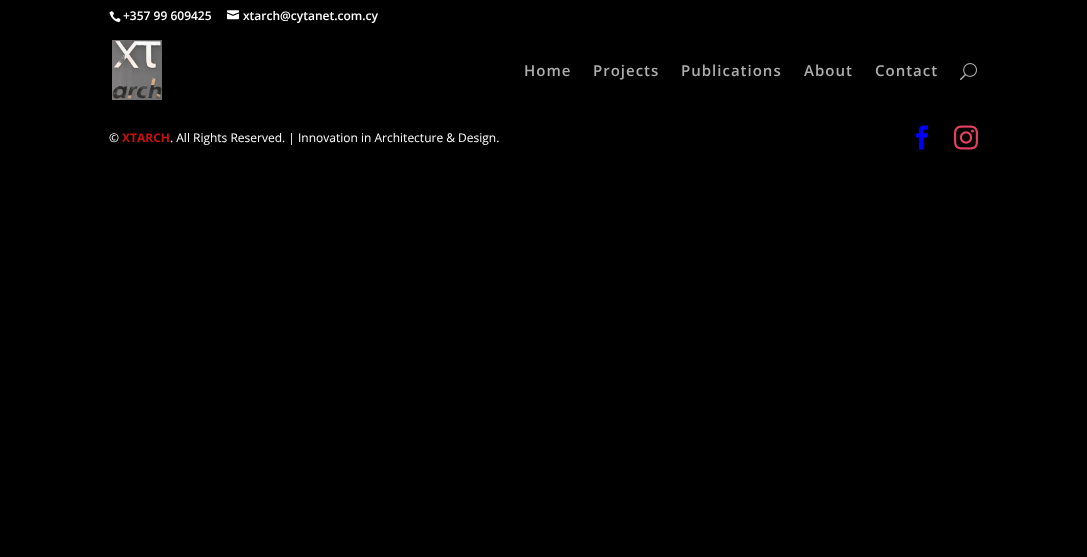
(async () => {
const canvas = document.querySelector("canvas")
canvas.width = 1087
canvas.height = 557
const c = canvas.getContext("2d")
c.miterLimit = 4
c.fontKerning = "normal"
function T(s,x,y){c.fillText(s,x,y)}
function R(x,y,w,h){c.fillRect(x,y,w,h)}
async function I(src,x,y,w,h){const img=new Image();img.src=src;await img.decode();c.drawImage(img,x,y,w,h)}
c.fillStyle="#000"
R(0,0,1087,557)
await I("1.png",109,11,12,12)
c.font="600 12px Open Sans"
c.fillStyle="#fff"
T("+357 99 609425",123,20)
await I("2.png",227,10,12,10)
T("xtarch@cytanet.com.cy",243,20)
await I("3.png",112,40,50,60)
c.letterSpacing="1px"
c.font="600 15px Open Sans"
c.fillStyle="#adadad"
T("Home",524,76)
T("Projects",593,76)
T("Publications",681,76)
T("About",804,76)
T("Contact",875,76)
await I("4.png",960,63,17,18)
c.letterSpacing="0px"
c.font="12px Open Sans"
c.fillStyle="#fff"
T("©",109,142)
c.font="bold 12px Open Sans"
c.fillStyle="#c9100a"
T("XTARCH",122,142)
c.font="12px Open Sans"
c.fillStyle="#fff"
T(". All Rights Reserved. | Innovation in Architecture & Design.",170,142)
await I("5.png",916,125,13,25)
await I("6.png",954,125,24,25)
})()
